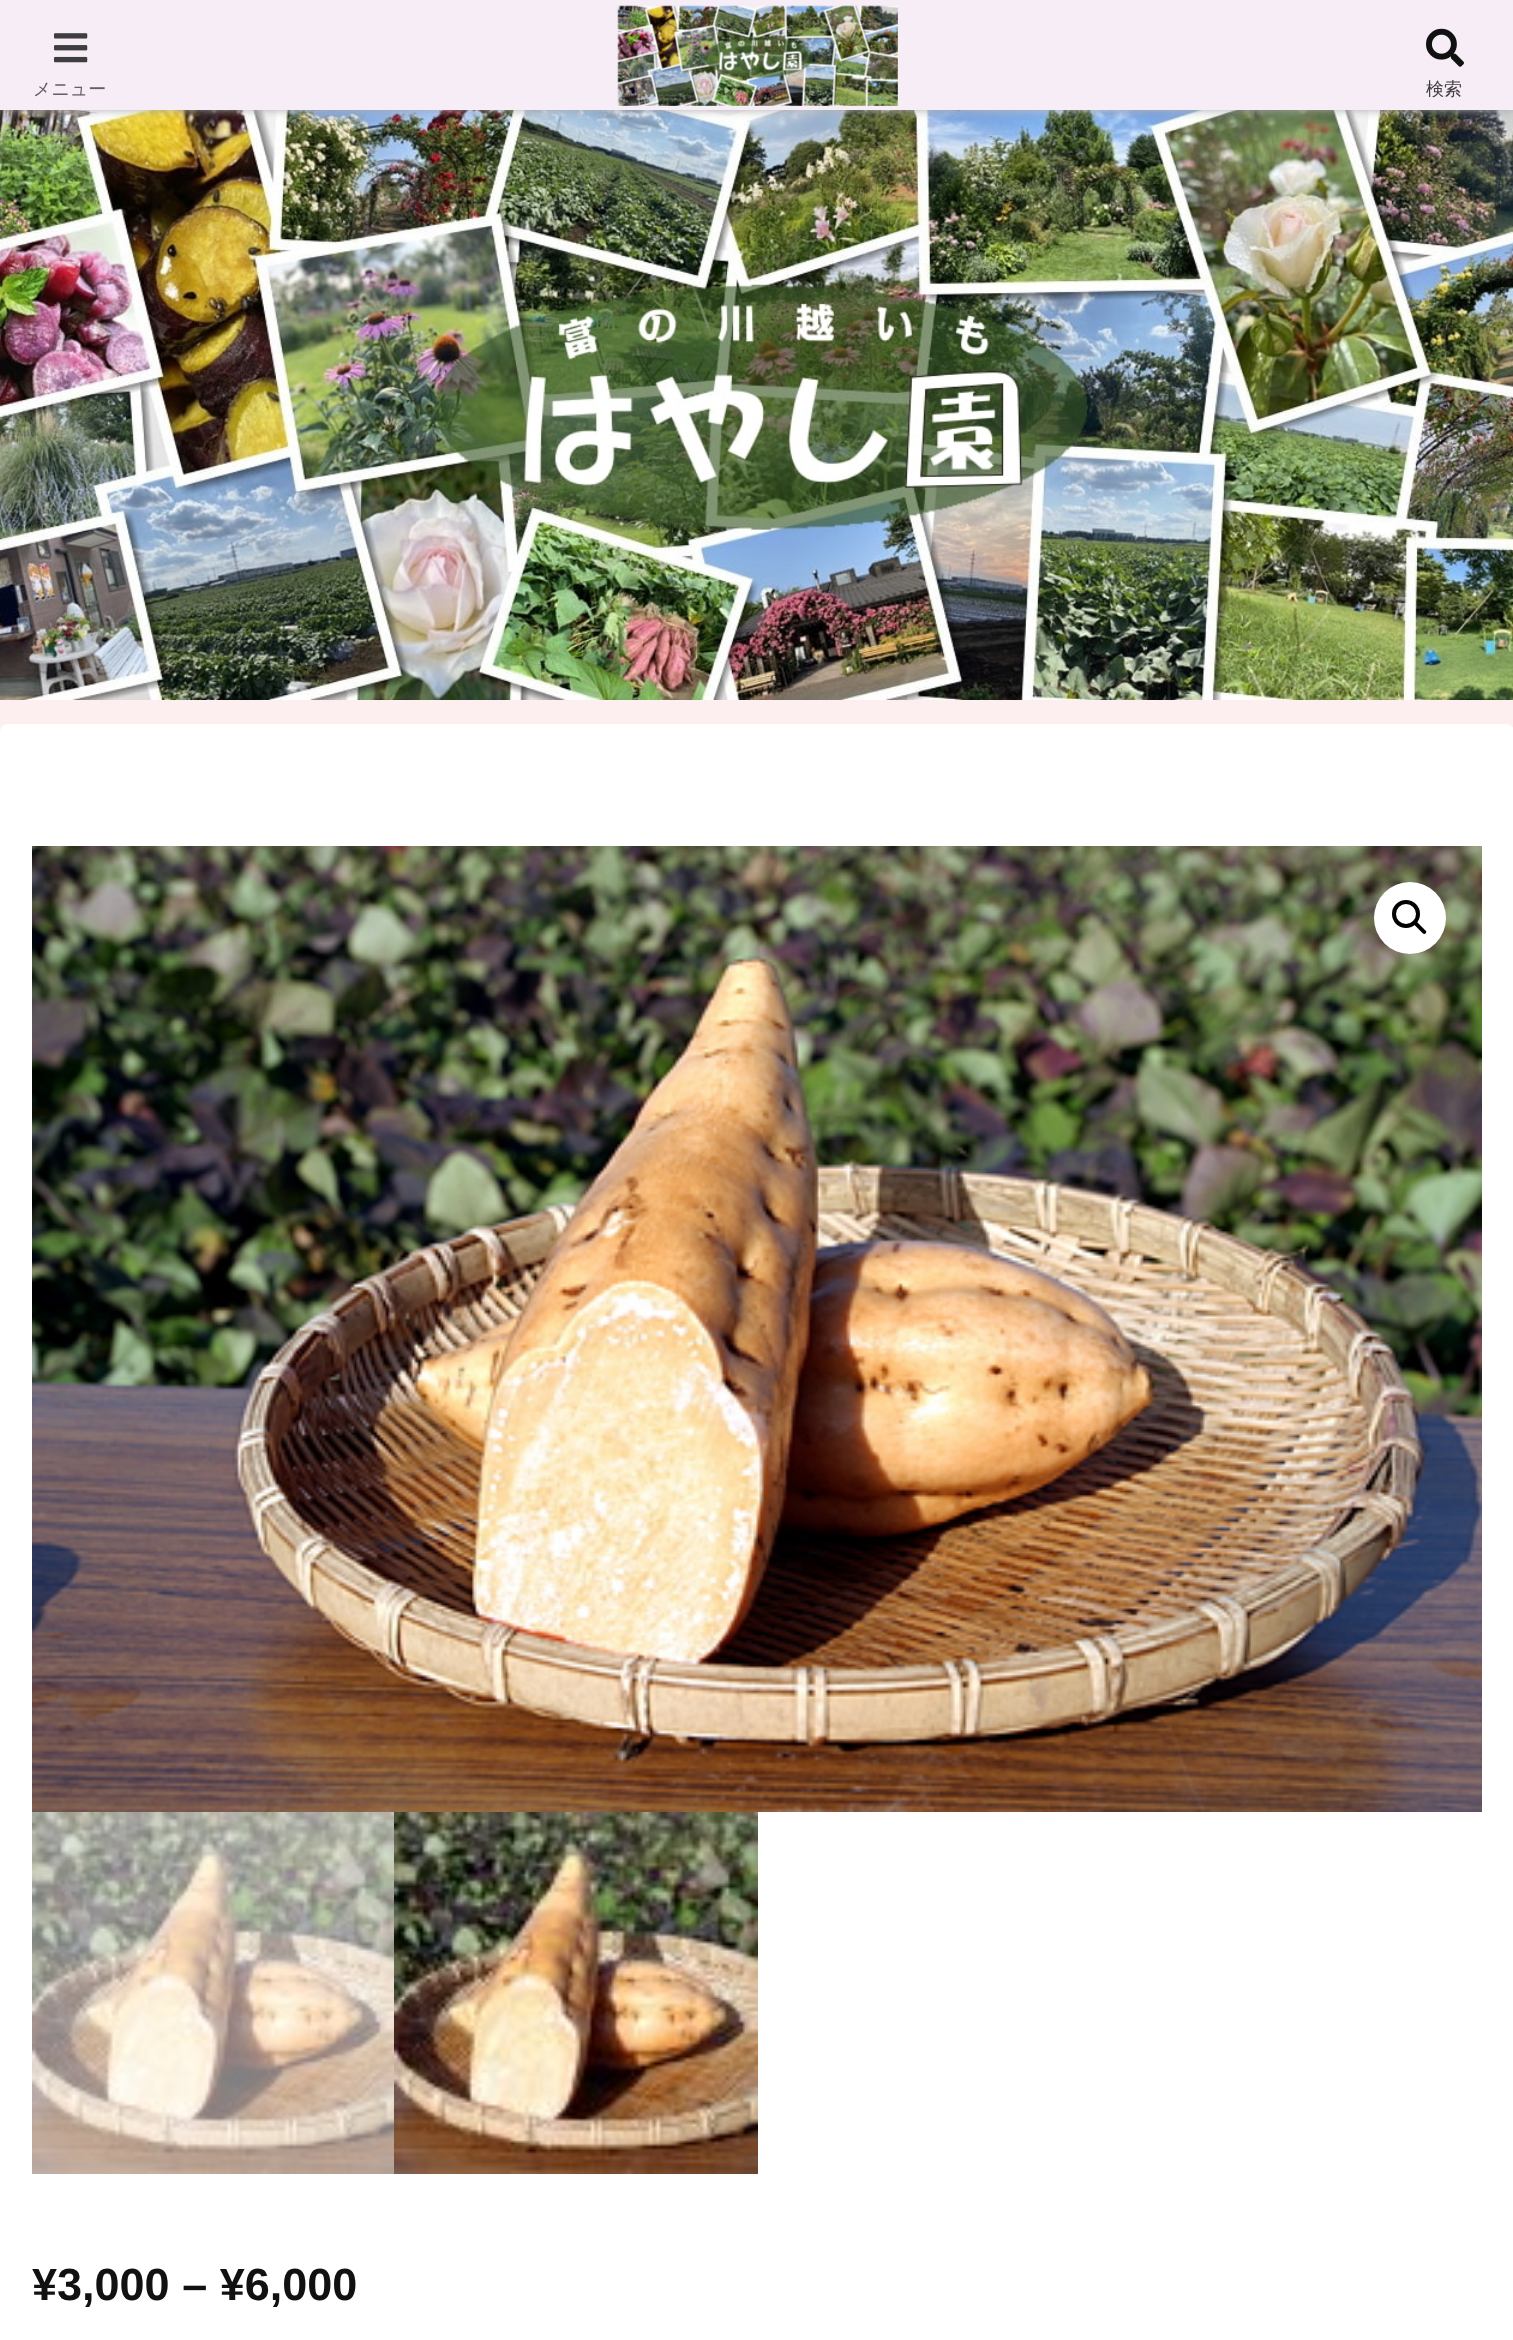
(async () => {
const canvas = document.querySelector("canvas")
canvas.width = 1513
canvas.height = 2340
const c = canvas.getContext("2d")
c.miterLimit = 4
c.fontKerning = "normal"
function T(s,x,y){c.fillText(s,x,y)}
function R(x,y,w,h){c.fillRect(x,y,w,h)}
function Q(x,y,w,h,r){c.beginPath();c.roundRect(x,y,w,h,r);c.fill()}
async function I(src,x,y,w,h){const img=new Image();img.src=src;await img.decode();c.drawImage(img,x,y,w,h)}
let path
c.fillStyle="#fdeeef"
R(0,0,1513,2340)
await I("4.png",0,110,1513,590)
c.fillStyle="#a9a9a9"
c.filter="blur(5px)"
c.beginPath()
c.rect(0,0,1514,110)
c.fill()
c.filter="none"
c.fillStyle="#f6edf6"
R(0,0,1513,110)
await I("1.png",54,33,34,30)
c.font="500 18px WenQuanYi Zen Hei"
c.fillStyle="#636063"
T("メニュー",33,95)
await I("2.png",617,5,281,101)
await I("3.png",1426,28,38,39)
c.fillStyle="#3f3d3f"
T("検索",1426,95)
c.fillStyle="#fff"
Q(0,724,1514,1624,8)
await I("5.png",32,846,1450,966)
c.beginPath()
c.arc(1410,918,36,0,7)
c.fill()
c.beginPath()
c.arc(1406,914,12,0,7)
c.strokeStyle="#000"
c.lineWidth=4
c.stroke()
c.fillStyle="#000"
path = new Path2D("M1414.5 922c.5-1 2-1 2.5 0l8.5 8.5c1 .5 1 2 0 3c-.5 .5-2 .5-2.5 0l-8.5-8.5c-1-1-1-2.5 0-3z")
c.fill(path)
await I("6.png",32,1812,362,362)
await I("7.png",394,1812,364,362)
c.font="bold 45px Liberation Sans"
c.fillStyle="#111"
T("¥3,000 – ¥6,000",32,2300)
})()
